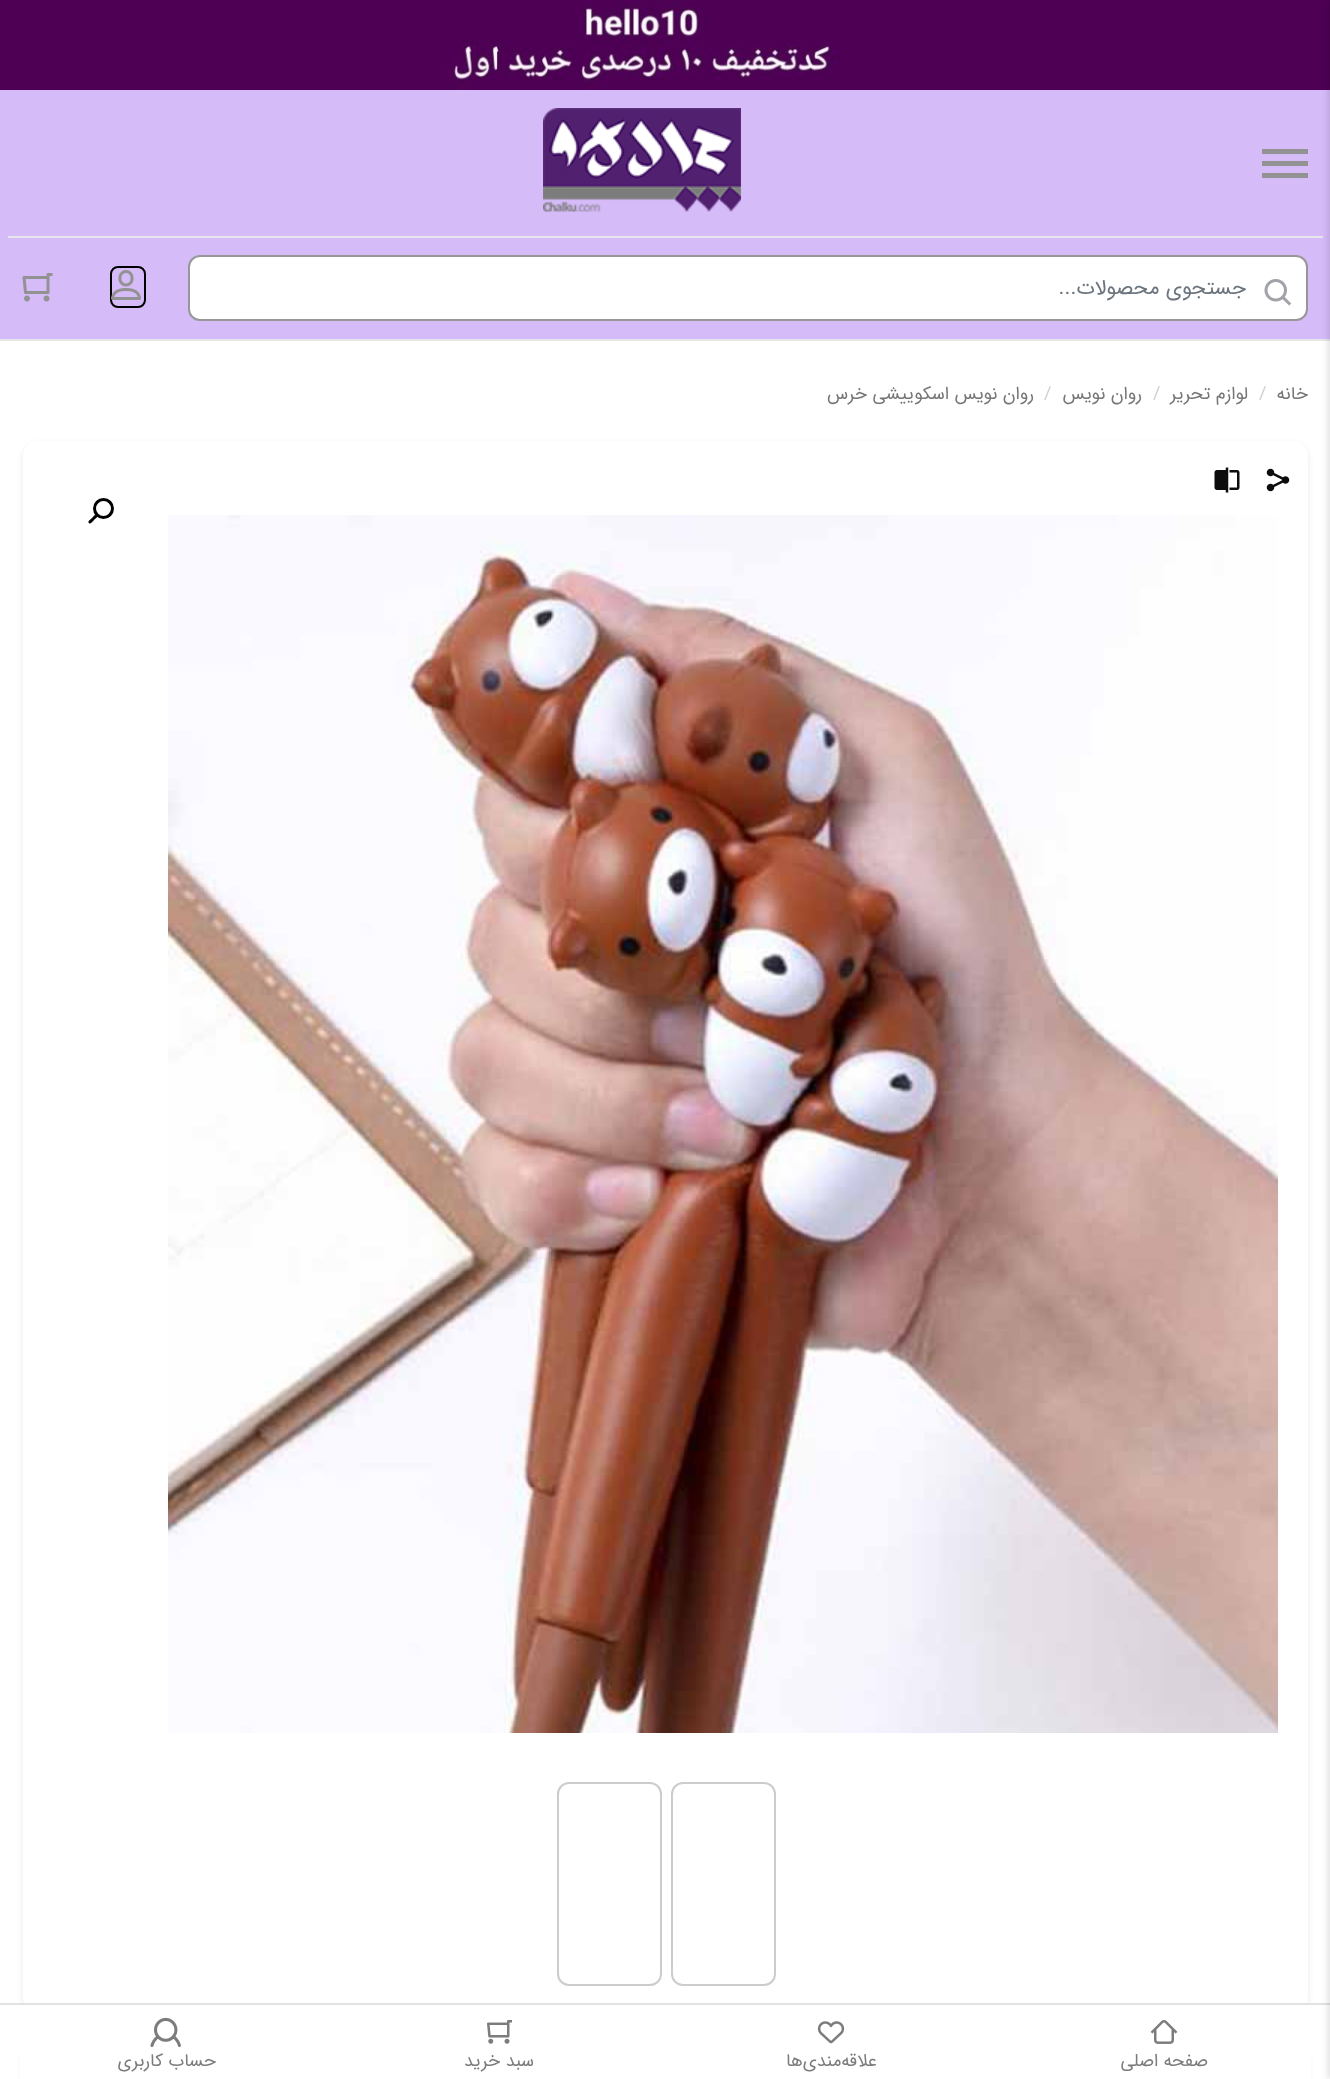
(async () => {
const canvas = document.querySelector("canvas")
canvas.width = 1330
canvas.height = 2079
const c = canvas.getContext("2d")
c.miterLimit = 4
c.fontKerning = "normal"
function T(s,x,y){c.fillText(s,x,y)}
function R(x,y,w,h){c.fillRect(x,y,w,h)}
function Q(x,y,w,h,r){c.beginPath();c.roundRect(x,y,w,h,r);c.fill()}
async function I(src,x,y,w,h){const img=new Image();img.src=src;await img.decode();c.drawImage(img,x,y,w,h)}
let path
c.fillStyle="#fff"
R(0,0,1330,2079)
await I("1.png",0,0,1330,90)
c.fillStyle="#d6bbf9"
R(0,90,1330,249)
c.fillStyle="#e5e5ea"
R(0,339,1330,2)
R(8,236,1315,2)
c.fillStyle="#00000017"
c.filter="blur(3px)"
c.beginPath()
c.roundRect(23,444,1285,1572,15)
c.fill()
c.filter="none"
c.fillStyle="#fff"
Q(23,441,1285,1572,15)
c.fillStyle="#e2e2e2"
R(0,2003,1330,2)
c.fillStyle="#00000021"
c.filter="blur(3px)"
c.beginPath()
c.rect(1328,0,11,2079)
c.fill()
c.filter="none"
c.fillStyle="#929292"
R(1262,161,46,5)
R(1262,149,46,5)
R(1262,173,46,5)
await I("2.png",543,108,198,104)
c.fillStyle="#fff"
c.beginPath()
c.roundRect(189,256,1118,64,11)
c.fill()
c.strokeStyle="#979797"
c.lineWidth=2
c.stroke()
await I("3.png",1264,279,28,27)
c.direction="rtl"
c.font="21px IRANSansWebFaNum"
c.fillStyle="#6c757d"
T("جستجوی محصولات...",1246,294)
c.beginPath()
c.roundRect(111,267,34,40,7)
c.strokeStyle="#000"
c.stroke()
await I("4.png",111,270,30,30)
await I("5.png",22,273,31,29)
c.font="18px IRANSansWebFaNum"
c.fillStyle="#767676"
T("خانه",1308,399)
c.direction="ltr"
c.fillStyle="#cfcfcf"
T("/",1259,399)
c.direction="rtl"
c.fillStyle="#767676"
T("لوازم تحریر",1248,399)
c.direction="ltr"
c.fillStyle="#cfcfcf"
T("/",1153,399)
c.direction="rtl"
c.fillStyle="#767676"
T("روان نویس",1142,399)
c.direction="ltr"
c.fillStyle="#cfcfcf"
T("/",1044,399)
c.direction="rtl"
c.fillStyle="#767676"
T("روان نویس اسکوییشی خرس",1034,399)
await I("6.png",1266,468,24,24)
await I("7.png",1214,467,26,26)
c.beginPath()
c.arc(103.5,508.5,9,0,7)
c.lineWidth=3
c.stroke()
c.fillStyle="#000"
path = new Path2D("M97 515c2 1.5-2 4-3 5c-1 1-3.5 5-5 3c-2-1.5 2-4 3-5c1-1 3.5-5 5-3z")
c.fill(path)
await I("8.png",168,515,1110,1218)
c.beginPath()
c.roundRect(672,1783,103,202,11)
c.strokeStyle="#ccc"
c.lineWidth=2
c.stroke()
c.beginPath()
c.roundRect(558,1783,103,202,11)
c.stroke()
c.fillStyle="#00000017"
c.filter="blur(3px)"
c.beginPath()
c.roundRect(23,2046,1285,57,15)
c.fill()
c.filter="none"
c.fillStyle="#fff"
Q(23,2043,1285,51,15)
c.fillStyle="#fffffff2"
R(20,2005,1291,74)
await I("9.png",1150,2020,28,24)
c.fillStyle="#7c7c7c"
T("صفحه اصلی",1208,2066)
await I("10.png",817,2021,28,23)
T("علاقه‌مندی‌ها",877,2066)
await I("11.png",487,2020,25,24)
T("سبد خرید",534,2066)
await I("12.png",150,2017,31,31)
T("حساب کاربری",216,2066)
})()
